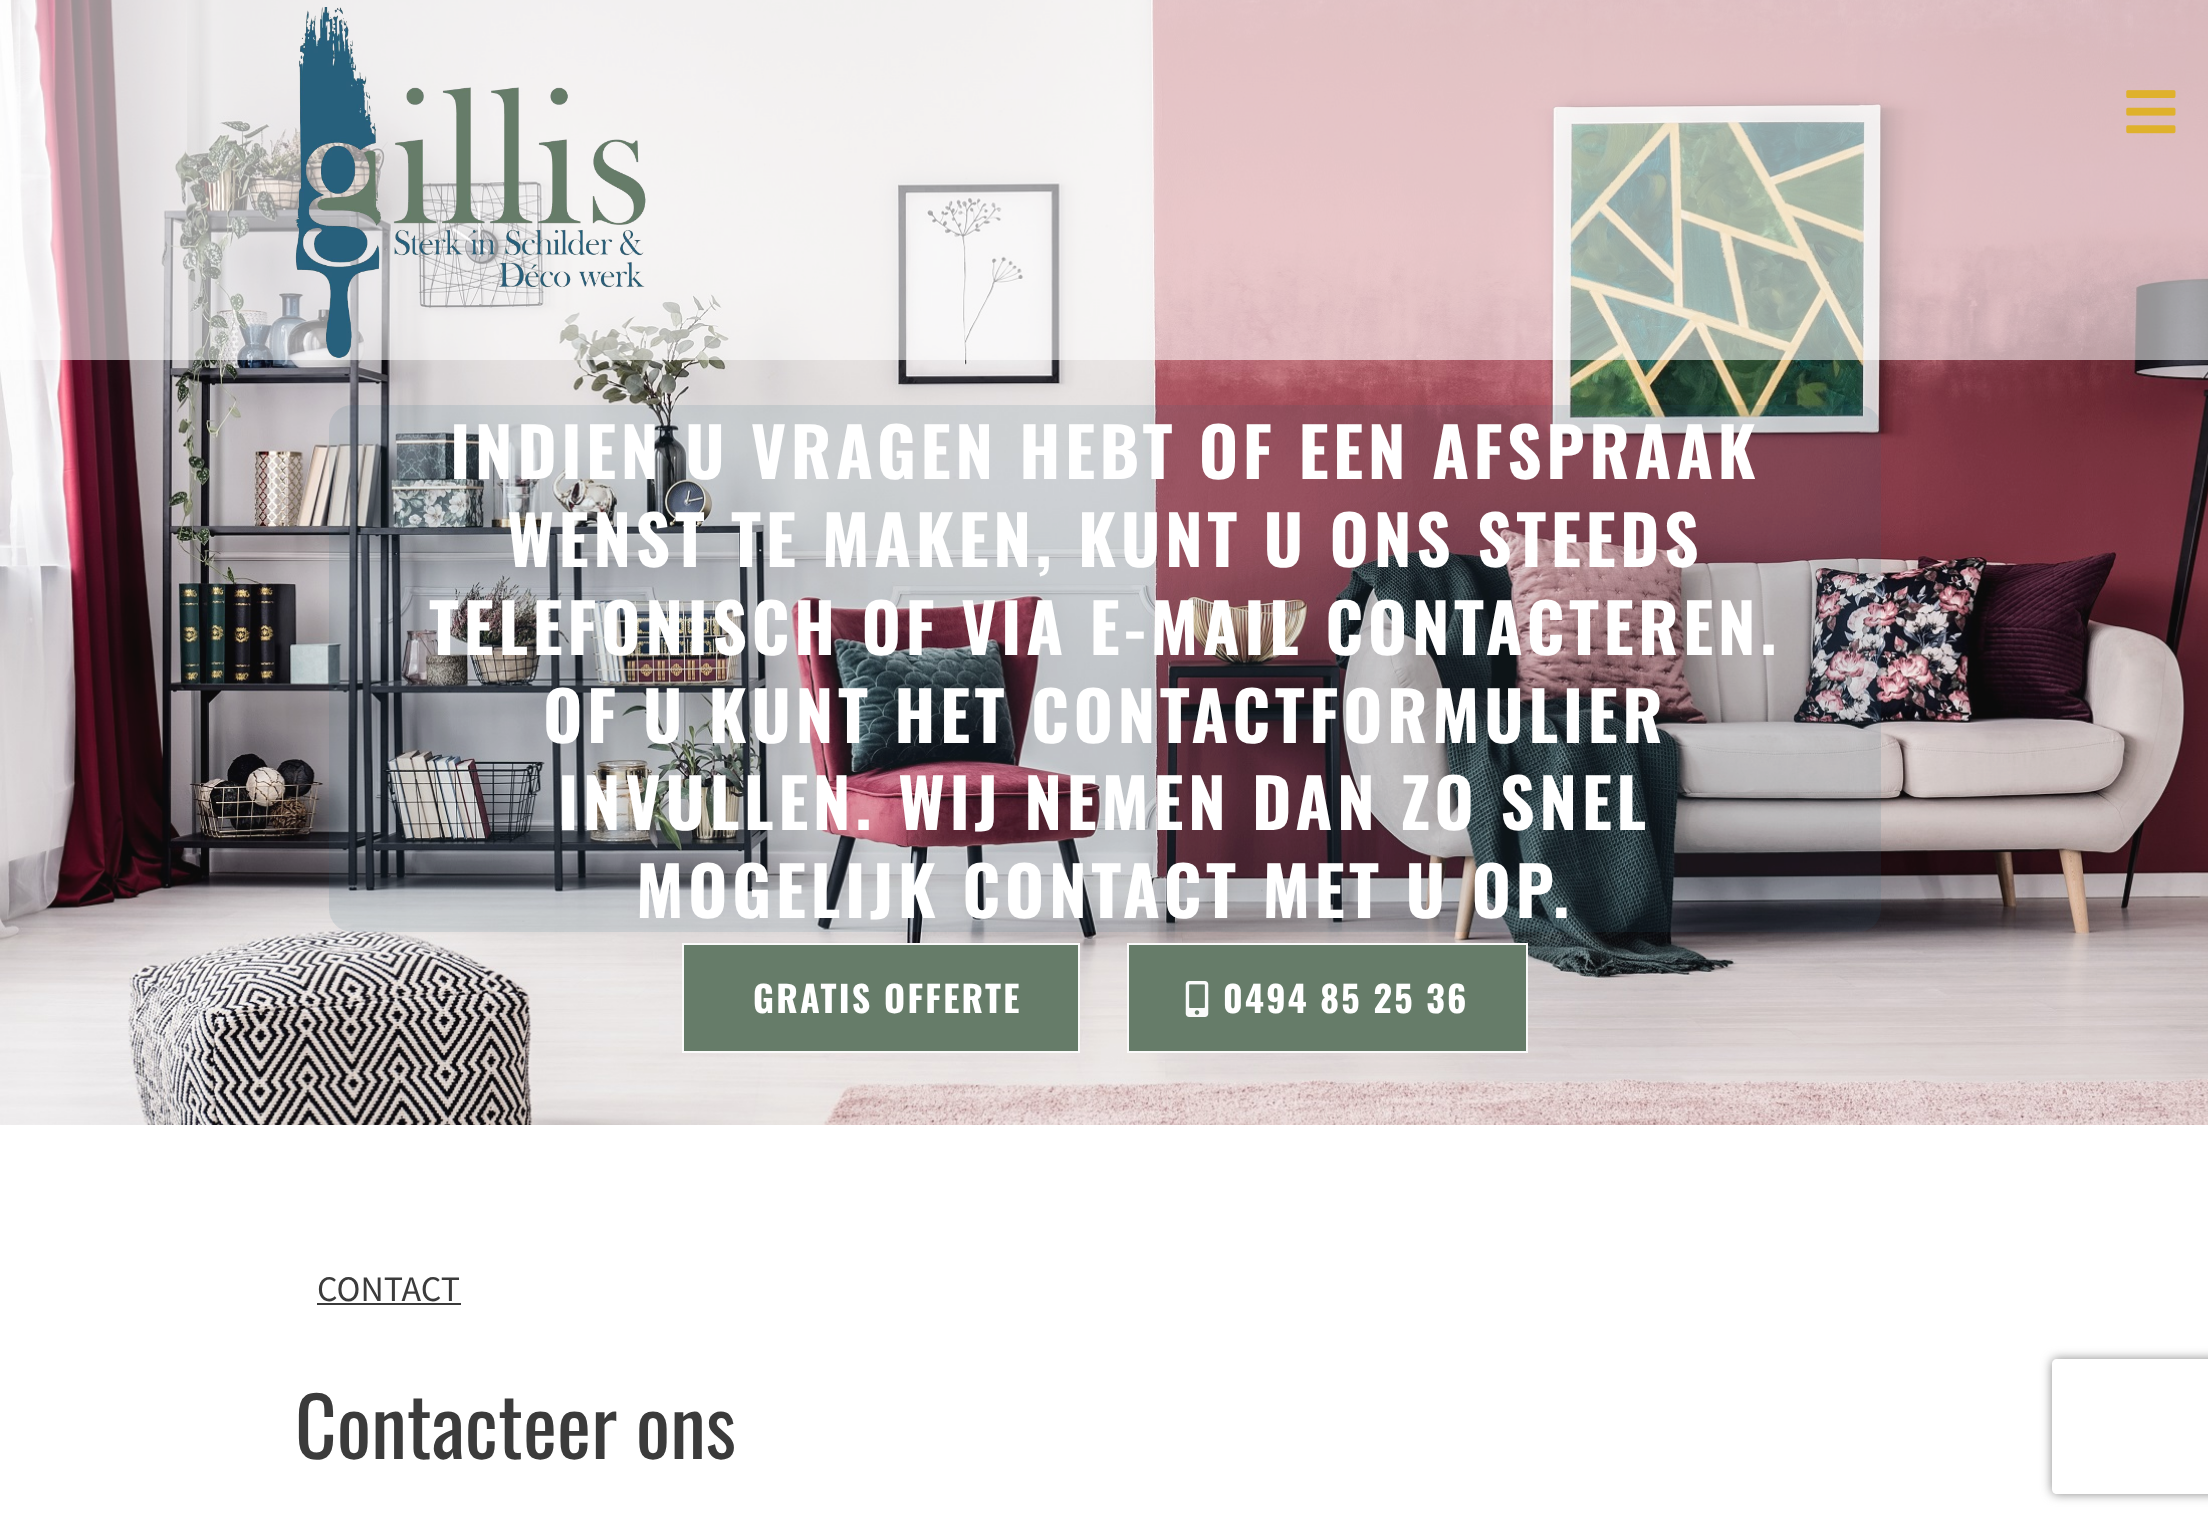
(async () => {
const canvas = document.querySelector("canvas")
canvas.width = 2208
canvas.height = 1525
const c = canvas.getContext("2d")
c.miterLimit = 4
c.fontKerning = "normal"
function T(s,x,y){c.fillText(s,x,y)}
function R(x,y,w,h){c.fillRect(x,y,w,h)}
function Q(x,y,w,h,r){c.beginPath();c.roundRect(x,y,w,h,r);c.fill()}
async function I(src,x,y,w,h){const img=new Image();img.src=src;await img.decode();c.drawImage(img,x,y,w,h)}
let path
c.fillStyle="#fff"
R(0,0,2208,1525)
await I("3.png",0,0,2208,1125)
c.fillStyle="#ffffff8f"
R(0,0,2208,360)
await I("1.png",295,7,351,351)
await I("2.png",2126,90,50,44)
c.fillStyle="#27607c1f"
Q(329,405,1552,527,23)
c.letterSpacing="4.5px"
c.font="bold 67.5px Oswald"
c.fillStyle="#fff"
T("INDIEN U VRAGEN HEBT OF EEN AFSPRAAK",450,479)
T("WENST TE MAKEN, KUNT U ONS STEEDS",507,567)
T("TELEFONISCH OF VIA E-MAIL CONTACTEREN.",429,655)
T("OF U KUNT HET CONTACTFORMULIER",543,743)
T("INVULLEN. WIJ NEMEN DAN ZO SNEL",558,830)
T("MOGELIJK CONTACT MET U OP.",636,918)
c.fillStyle="#667c69"
c.beginPath()
c.rect(683,944,396,108)
c.fill()
c.strokeStyle="#fafafa"
c.lineWidth=2
c.stroke()
c.letterSpacing="2.25px"
c.font="bold 36px Oswald"
c.fillStyle="#fff"
T("GRATIS OFFERTE",753,1013)
c.fillStyle="#667c69"
c.beginPath()
c.rect(1128,944,399,108)
c.fill()
c.stroke()
await I("4.png",1185,981,24,36)
c.fillStyle="#fff"
T("0494 85 25 36",1223,1013)
c.letterSpacing="0px"
c.font="36px Source Sans Pro"
c.fillStyle="#3b3b3b"
T("CONTACT",317,1301)
R(317,1303,144,2)
c.font="81px Oswald"
T("Contacteer ons",295,1459)
c.save()
path = new Path2D("M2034 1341h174v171h-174zm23 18h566c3 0 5 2 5 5v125c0 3-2 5-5 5h-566c-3 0-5-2-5-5v-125c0-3 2-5 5-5z")
c.clip(path,"evenodd")
c.fillStyle="#858585"
c.filter="blur(5.5px)"
c.beginPath()
c.roundRect(2052,1359,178,135,5)
c.fill()
c.filter="none"
c.restore()
})()
